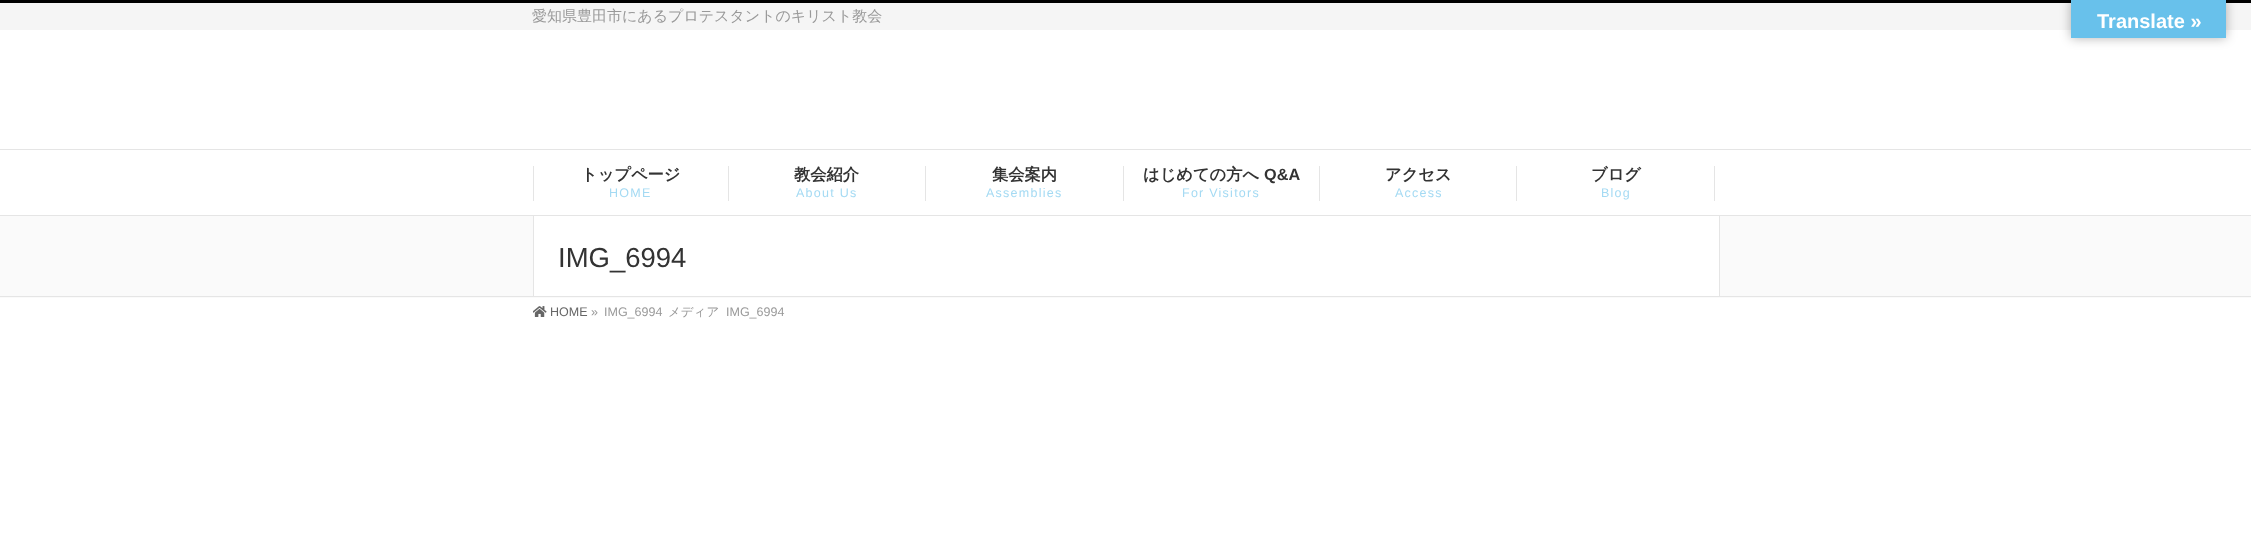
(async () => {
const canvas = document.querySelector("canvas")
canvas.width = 2251
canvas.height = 537
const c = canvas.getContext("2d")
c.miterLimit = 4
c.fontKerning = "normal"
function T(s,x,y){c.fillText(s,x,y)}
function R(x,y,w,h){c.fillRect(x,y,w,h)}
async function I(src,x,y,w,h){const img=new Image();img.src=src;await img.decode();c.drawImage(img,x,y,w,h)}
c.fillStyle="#fff"
R(0,0,2251,537)
c.fillStyle="#f5f5f5"
R(0,3,2251,27)
c.fillStyle="#000"
R(0,0,2251,3)
c.font="500 15px WenQuanYi Zen Hei"
c.fillStyle="#999"
T("愛知県豊田市にあるプロテスタントのキリスト教会",532,21)
c.fillStyle="#e5e5e5"
R(0,149,2251,1)
R(0,215,2251,1)
R(728,166,1,35)
R(533,166,1,35)
c.font="bold 16.25px WenQuanYi Zen Hei"
c.fillStyle="#333"
T("トップページ",581,180)
c.letterSpacing="1.25px"
c.font="12.5px Liberation Sans"
c.fillStyle="#a4daf3"
T("HOME",609,197)
c.fillStyle="#e5e5e5"
R(925,166,1,35)
c.letterSpacing="0px"
c.font="bold 16.25px WenQuanYi Zen Hei"
c.fillStyle="#333"
T("教会紹介",794,180)
c.letterSpacing="1.25px"
c.font="12.5px Liberation Sans"
c.fillStyle="#a4daf3"
T("About Us",796,197)
c.fillStyle="#e5e5e5"
R(1123,166,1,35)
c.letterSpacing="0px"
c.font="bold 16.25px WenQuanYi Zen Hei"
c.fillStyle="#333"
T("集会案内",992,180)
c.letterSpacing="1.25px"
c.font="12.5px Liberation Sans"
c.fillStyle="#a4daf3"
T("Assemblies",986,197)
c.fillStyle="#e5e5e5"
R(1319,166,1,35)
c.letterSpacing="0px"
c.font="bold 16.25px WenQuanYi Zen Hei"
c.fillStyle="#333"
T("はじめての方へ",1143,180)
c.font="bold 16.25px Liberation Sans"
T("Q&A",1264,180)
c.letterSpacing="1.25px"
c.font="12.5px Liberation Sans"
c.fillStyle="#a4daf3"
T("For Visitors",1182,197)
c.fillStyle="#e5e5e5"
R(1516,166,1,35)
c.letterSpacing="0px"
c.font="bold 16.25px WenQuanYi Zen Hei"
c.fillStyle="#333"
T("アクセス",1385,180)
c.letterSpacing="1.25px"
c.font="12.5px Liberation Sans"
c.fillStyle="#a4daf3"
T("Access",1395,197)
c.fillStyle="#e5e5e5"
R(1714,166,1,35)
c.letterSpacing="0px"
c.font="bold 16.25px WenQuanYi Zen Hei"
c.fillStyle="#333"
T("ブログ",1591,180)
c.letterSpacing="1.25px"
c.font="12.5px Liberation Sans"
c.fillStyle="#a4daf3"
T("Blog",1601,197)
c.fillStyle="#fafafa"
R(0,216,2251,82)
c.fillStyle="#e5e5e5"
R(0,296,2251,1)
c.fillStyle="#fff"
R(534,216,1185,80)
c.fillStyle="#e5e5e5"
R(1719,216,1,80)
R(533,216,1,80)
c.letterSpacing="0px"
c.font="27.5px Liberation Sans"
c.fillStyle="#333"
T("IMG_6994",558,267)
await I("1.png",533,306,14,11)
c.font="12.5px Liberation Sans"
c.fillStyle="#666"
T("HOME",550,316)
c.fillStyle="#999"
T("»",591,316)
T("IMG_6994",604,316)
c.font="500 12.5px WenQuanYi Zen Hei"
T("メディア",668,316)
c.font="12.5px Liberation Sans"
T("IMG_6994",726,316)
c.fillStyle="#0000004d"
c.filter="blur(5.5px)"
c.beginPath()
c.rect(2071,0,155,38)
c.fill()
c.filter="none"
c.fillStyle="#68c1eb"
R(2071,0,155,38)
c.font="bold 20px Liberation Sans"
c.fillStyle="#fff"
T("Translate »",2097,28)
})()
